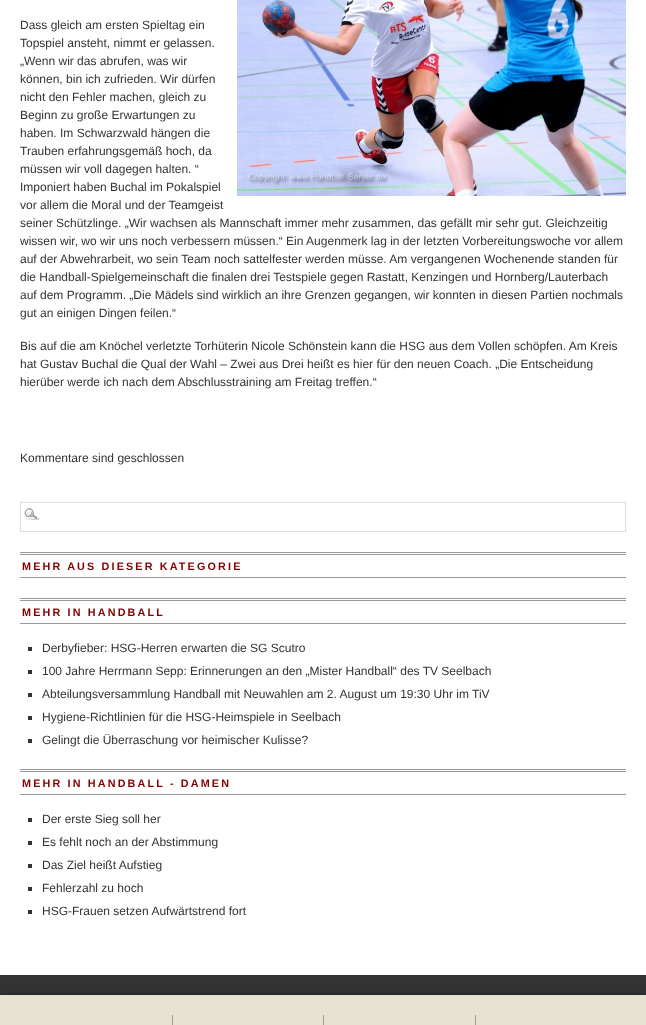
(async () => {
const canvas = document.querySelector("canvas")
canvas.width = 646
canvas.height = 1025
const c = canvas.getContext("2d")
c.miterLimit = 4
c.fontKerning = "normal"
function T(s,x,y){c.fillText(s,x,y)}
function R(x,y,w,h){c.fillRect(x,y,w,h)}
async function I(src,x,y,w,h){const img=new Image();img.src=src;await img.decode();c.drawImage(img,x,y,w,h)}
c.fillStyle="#333"
R(0,0,646,1025)
c.fillStyle="#fff"
R(0,0,646,975)
await I("1.png",237,0,389,196)
c.font="12px Liberation Sans"
c.fillStyle="#333"
T("Dass gleich am ersten Spieltag ein",20,29)
T("Topspiel ansteht, nimmt er gelassen.",20,47)
T("„Wenn wir das abrufen, was wir",20,65)
T("können, bin ich zufrieden. Wir dürfen",20,83)
T("nicht den Fehler machen, gleich zu",20,101)
T("Beginn zu große Erwartungen zu",20,119)
T("haben. Im Schwarzwald hängen die",20,137)
T("Trauben erfahrungsgemäß hoch, da",20,155)
T("müssen wir voll dagegen halten. “",20,173)
T("Imponiert haben Buchal im Pokalspiel",20,191)
T("vor allem die Moral und der Teamgeist",20,209)
T("seiner Schützlinge. „Wir wachsen als Mannschaft immer mehr zusammen, das gefällt mir sehr gut. Gleichzeitig",20,227)
T("wissen wir, wo wir uns noch verbessern müssen.“ Ein Augenmerk lag in der letzten Vorbereitungswoche vor allem",20,245)
T("auf der Abwehrarbeit, wo sein Team noch sattelfester werden müsse. Am vergangenen Wochenende standen für",20,263)
T("die Handball-Spielgemeinschaft die finalen drei Testspiele gegen Rastatt, Kenzingen und Hornberg/Lauterbach",20,281)
T("auf dem Programm. „Die Mädels sind wirklich an ihre Grenzen gegangen, wir konnten in diesen Partien nochmals",20,299)
T("gut an einigen Dingen feilen.“",20,317)
T("Bis auf die am Knöchel verletzte Torhüterin Nicole Schönstein kann die HSG aus dem Vollen schöpfen. Am Kreis",20,350)
T("hat Gustav Buchal die Qual der Wahl – Zwei aus Drei heißt es hier für den neuen Coach. „Die Entscheidung",20,368)
T("hierüber werde ich nach dem Abschlusstraining am Freitag treffen.“",20,386)
T("Kommentare sind geschlossen",20,462)
await I("2.png",24,508,16,12)
c.strokeStyle="#ddd"
c.strokeRect(20.5,502.5,605,29)
c.fillStyle="#999"
R(20,552,606,1)
R(20,554,606,1)
R(20,577,606,1)
c.letterSpacing="2.15px"
c.font="bold 10.8px Liberation Sans"
c.fillStyle="#840000"
T("MEHR AUS DIESER KATEGORIE",22,570)
c.fillStyle="#999"
R(20,598,606,1)
R(20,600,606,1)
R(20,623,606,1)
c.fillStyle="#840000"
T("MEHR IN HANDBALL",22,616)
c.fillStyle="#333"
R(28,647,4,4)
c.letterSpacing="0px"
c.font="12px Liberation Sans"
T("Derbyfieber: HSG-Herren erwarten die SG Scutro",42,652)
R(28,670,4,4)
T("100 Jahre Herrmann Sepp: Erinnerungen an den „Mister Handball“ des TV Seelbach",42,675)
R(28,693,4,4)
T("Abteilungsversammlung Handball mit Neuwahlen am 2. August um 19:30 Uhr im TiV",42,698)
R(28,716,4,4)
T("Hygiene-Richtlinien für die HSG-Heimspiele in Seelbach",42,721)
R(28,739,4,4)
T("Gelingt die Überraschung vor heimischer Kulisse?",42,744)
c.fillStyle="#999"
R(20,769,606,1)
R(20,771,606,1)
R(20,794,606,1)
c.letterSpacing="2.15px"
c.font="bold 10.8px Liberation Sans"
c.fillStyle="#840000"
T("MEHR IN HANDBALL - DAMEN",22,787)
c.fillStyle="#333"
R(28,818,4,4)
c.letterSpacing="0px"
c.font="12px Liberation Sans"
T("Der erste Sieg soll her",42,823)
R(28,841,4,4)
T("Es fehlt noch an der Abstimmung",42,846)
R(28,864,4,4)
T("Das Ziel heißt Aufstieg",42,869)
R(28,887,4,4)
T("Fehlerzahl zu hoch",42,892)
R(28,910,4,4)
T("HSG-Frauen setzen Aufwärtstrend fort",42,915)
c.fillStyle="#00000066"
c.filter="blur(2.5px)"
c.beginPath()
c.rect(0,995,646,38)
c.fill()
c.filter="none"
c.fillStyle="#e6e3d3"
R(0,995,646,30)
c.fillStyle="#9f9f9f"
R(172,1015,1,10)
R(323,1015,1,10)
R(475,1015,1,10)
})()
